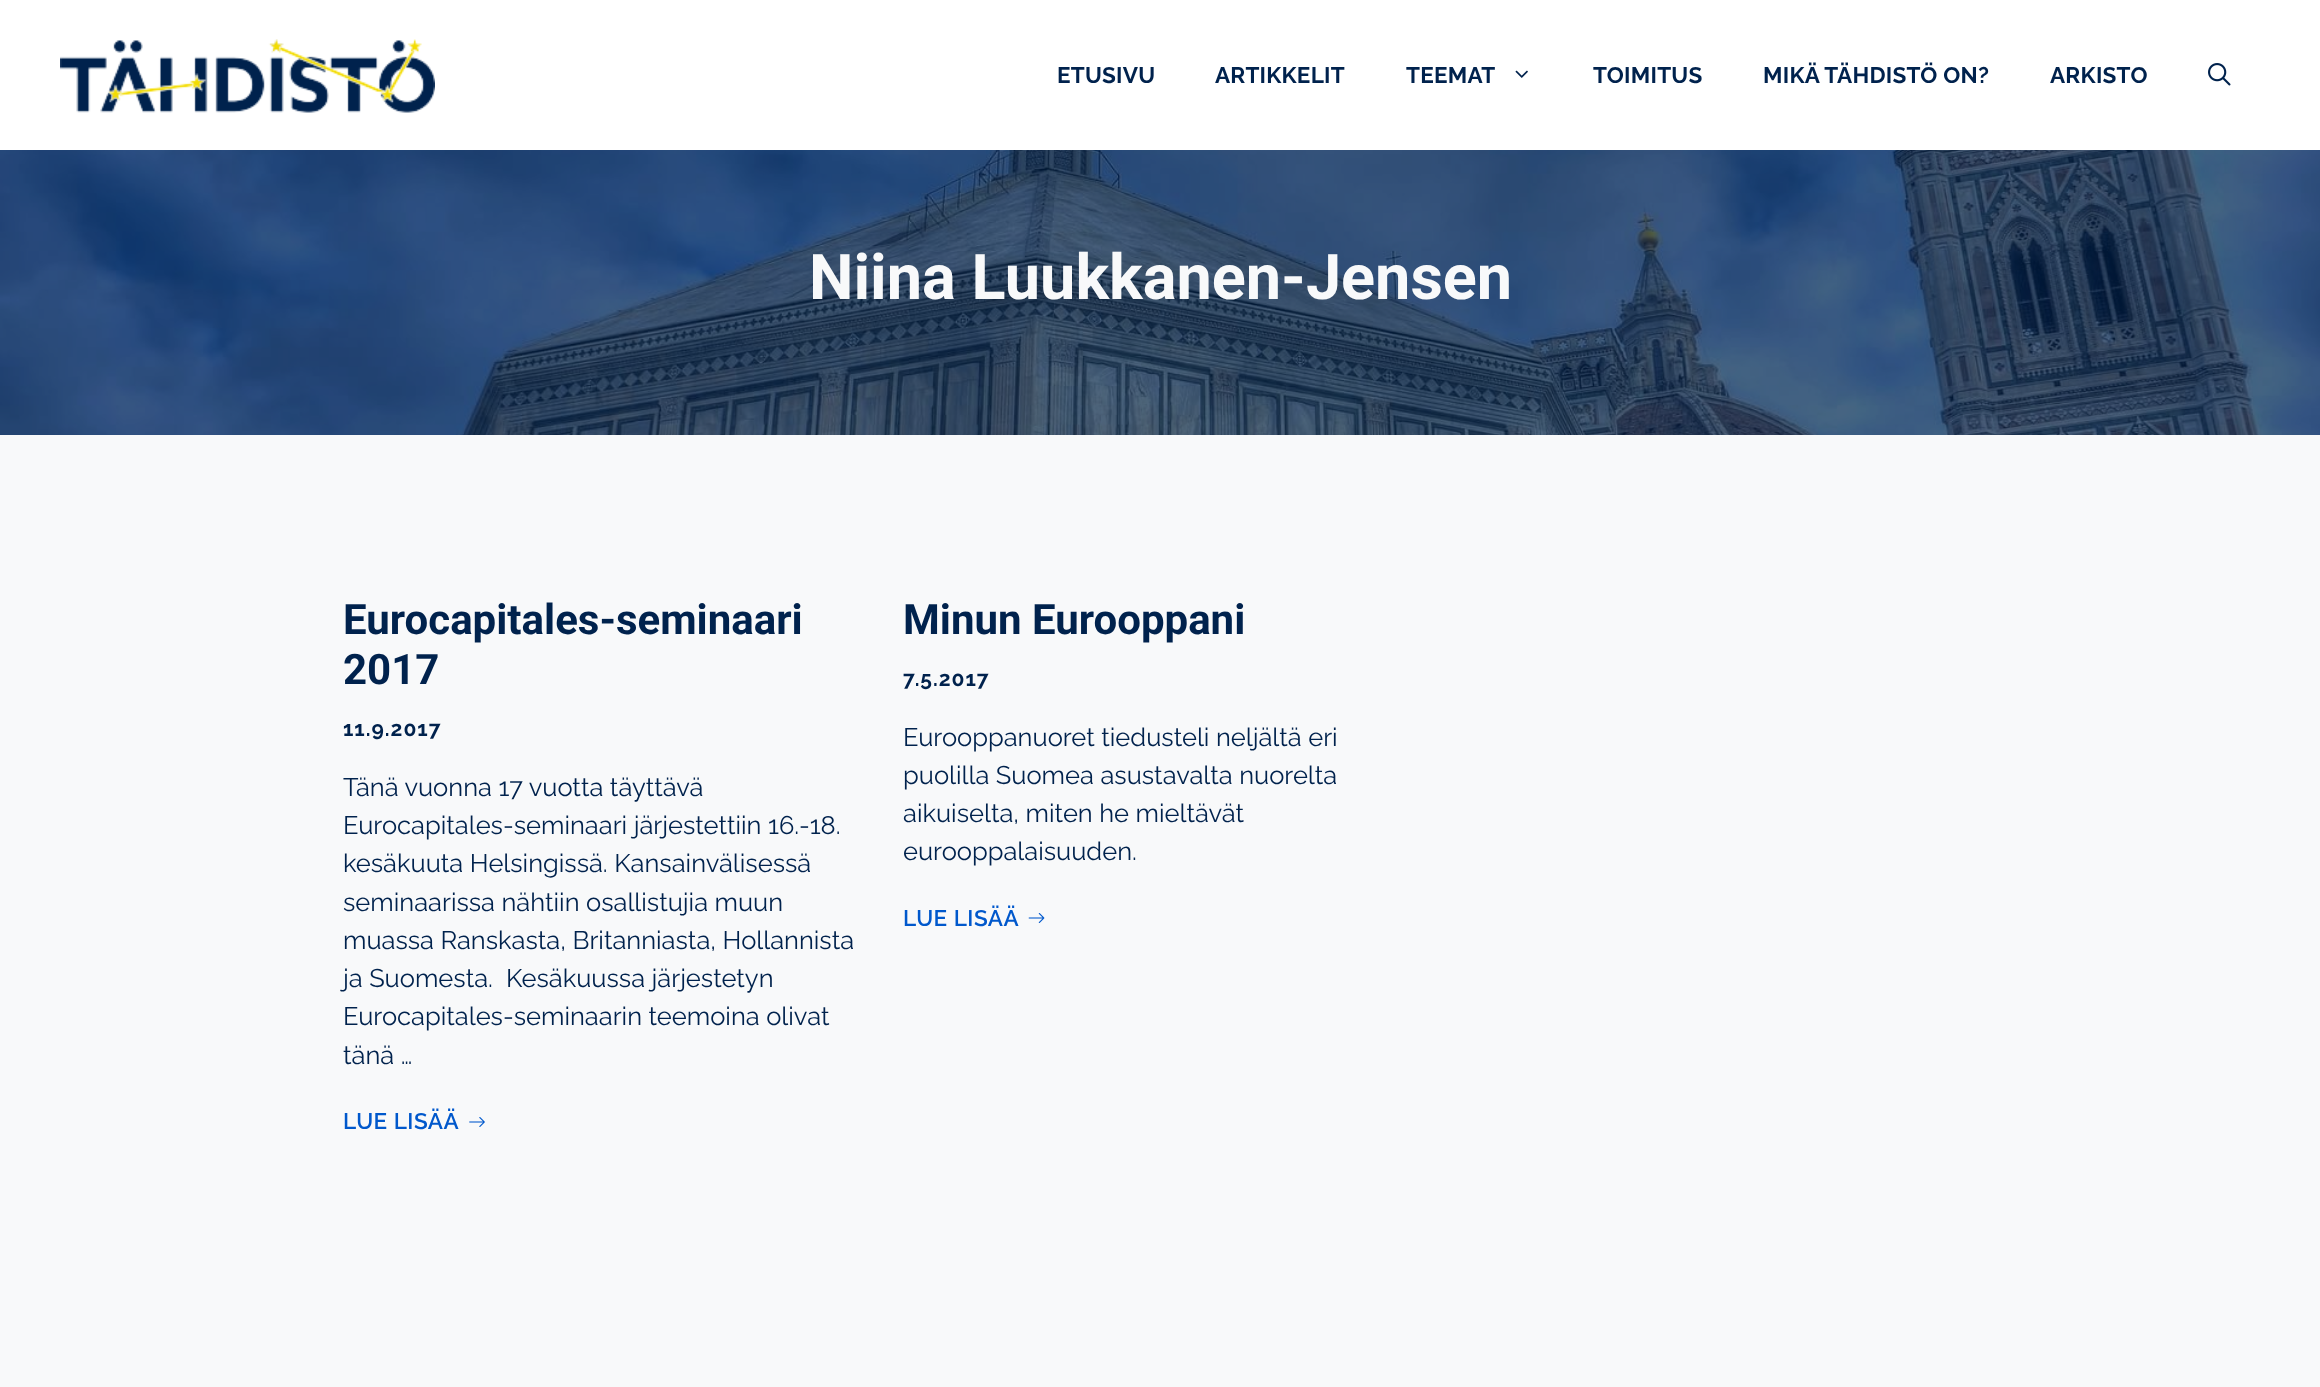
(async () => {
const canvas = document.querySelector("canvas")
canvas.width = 2320
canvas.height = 1387
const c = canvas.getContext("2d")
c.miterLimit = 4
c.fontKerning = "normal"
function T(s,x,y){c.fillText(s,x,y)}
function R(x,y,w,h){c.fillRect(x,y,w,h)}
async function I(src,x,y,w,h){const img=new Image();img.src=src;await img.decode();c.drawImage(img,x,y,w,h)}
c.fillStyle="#f8f9fa"
R(0,0,2320,1387)
c.fillStyle="#fff"
R(0,0,2320,150)
await I("1.png",60,39,375,74)
c.letterSpacing="0.25px"
c.font="bold 22.5px Raleway"
c.fillStyle="#00224d"
T("ETUSIVU",1057,83)
T("ARTIKKELIT",1215,83)
T("TEEMAT",1406,83)
await I("2.png",1515,70,13,8)
T("TOIMITUS",1593,83)
T("MIKÄ TÄHDISTÖ ON?",1763,83)
T("ARKISTO",2050,83)
await I("3.png",2208,63,23,23)
R(0,150,2320,285)
await I("4.png",0,150,2320,285)
c.letterSpacing="0px"
c.font="bold 63px Roboto"
c.fillStyle="#f8f9fa"
T("Niina Luukkanen-Jensen",809,299)
c.font="bold 42px Roboto"
c.fillStyle="#00224d"
T("Eurocapitales-seminaari",343,634)
T("2017",343,684)
c.letterSpacing="1px"
c.font="bold 21px Raleway"
T("11.9.2017",343,736)
c.letterSpacing="0px"
c.font="25.5px Raleway"
T("Tänä vuonna 17 vuotta täyttävä",343,796)
T("Eurocapitales-seminaari järjestettiin 16.-18.",343,834)
T("kesäkuuta Helsingissä. Kansainvälisessä",343,872)
T("seminaarissa nähtiin osallistujia muun",343,911)
T("muassa Ranskasta, Britanniasta, Hollannista",343,949)
T("ja Suomesta.  Kesäkuussa järjestetyn",343,987)
T("Eurocapitales-seminaarin teemoina olivat",343,1025)
T("tänä …",343,1064)
c.letterSpacing="0.5px"
c.font="600 22.5px Raleway"
c.fillStyle="#0058cc"
T("LUE LISÄÄ",343,1129)
await I("5.png",469,1117,16,10)
c.letterSpacing="0px"
c.font="bold 42px Roboto"
c.fillStyle="#00224d"
T("Minun Eurooppani",903,634)
c.letterSpacing="1px"
c.font="bold 21px Raleway"
T("7.5.2017",903,686)
c.letterSpacing="0px"
c.font="25.5px Raleway"
T("Eurooppanuoret tiedusteli neljältä eri",903,746)
T("puolilla Suomea asustavalta nuorelta",903,784)
T("aikuiselta, miten he mieltävät",903,822)
T("eurooppalaisuuden.",903,860)
c.letterSpacing="0.5px"
c.font="600 22.5px Raleway"
c.fillStyle="#0058cc"
T("LUE LISÄÄ",903,926)
await I("6.png",1028,913,17,10)
})()
